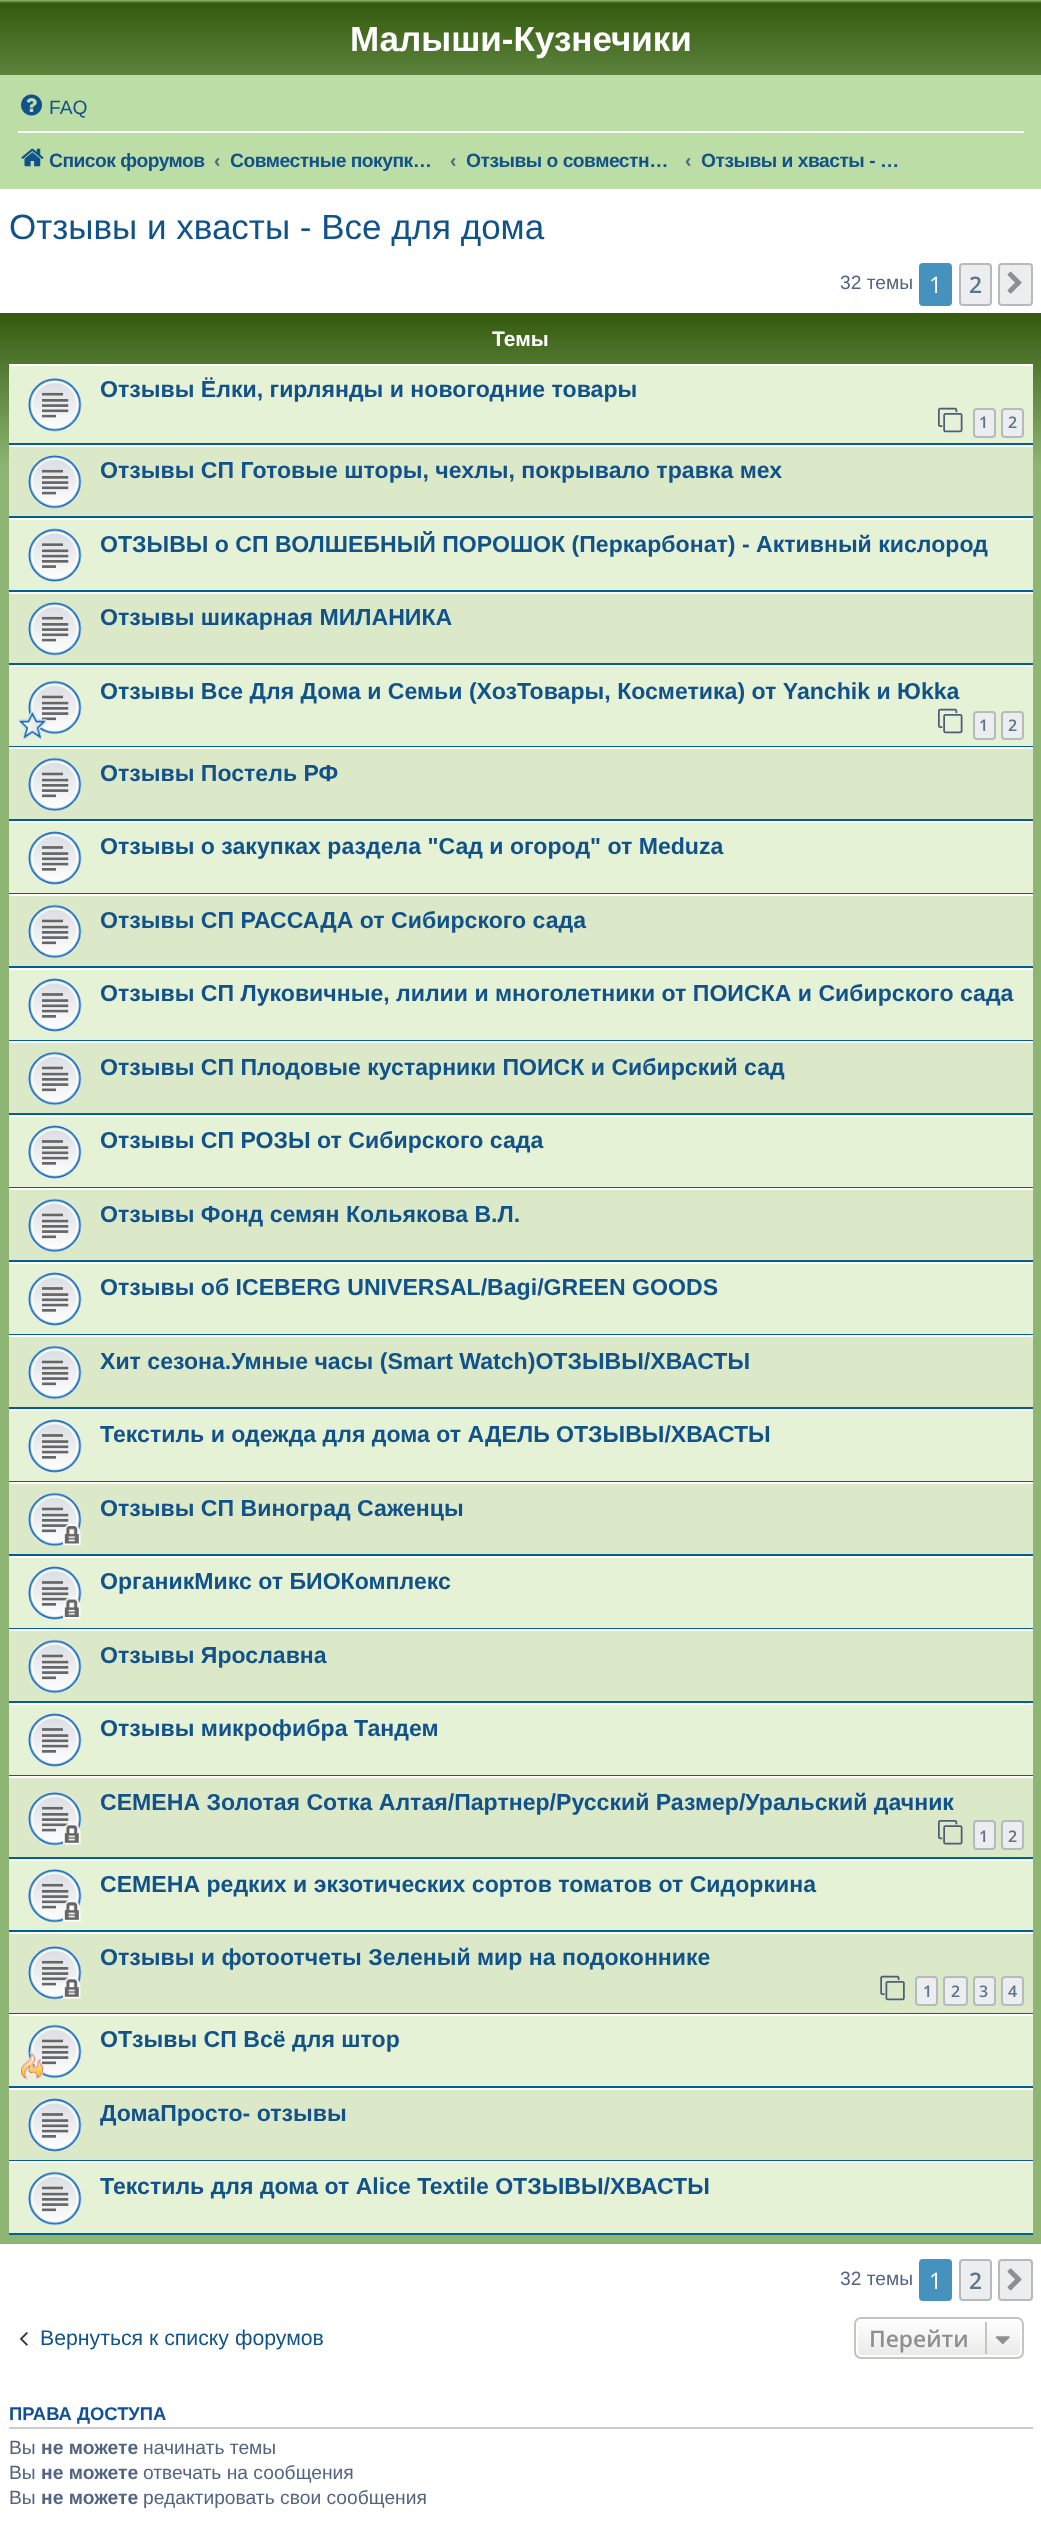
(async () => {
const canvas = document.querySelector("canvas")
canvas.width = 1041
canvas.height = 2523
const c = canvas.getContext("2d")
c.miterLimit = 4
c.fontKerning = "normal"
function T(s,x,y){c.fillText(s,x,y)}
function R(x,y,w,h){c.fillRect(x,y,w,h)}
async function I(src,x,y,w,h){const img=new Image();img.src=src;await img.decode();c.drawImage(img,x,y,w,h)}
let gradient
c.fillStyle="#fff"
R(0,0,1041,2523)
gradient = c.createLinearGradient(521,0,521,161)
gradient.addColorStop(0,"#8ebd70")
gradient.addColorStop(.02,"#345a0e")
gradient.addColorStop(1,"#8eb574")
c.fillStyle = gradient
R(0,0,1041,75)
c.font="bold 35px Liberation Sans"
c.fillStyle="#fff"
T("Малыши-Кузнечики",350,51)
c.fillStyle="#bcdda6"
R(0,75,1041,114)
await I("1.png",21,94,21,22)
c.font="19.25px Liberation Sans"
c.fillStyle="#105289"
T("FAQ",49,114)
c.fillStyle="#fff"
R(18,131,1006,2)
await I("2.png",21,148,23,19)
c.letterSpacing="-0.5px"
c.font="bold 19.25px Liberation Sans"
c.fillStyle="#105289"
T("Список форумов",49,167)
c.letterSpacing="0px"
c.fillStyle="#536482"
T("‹",214,167)
c.letterSpacing="-0.5px"
c.fillStyle="#105289"
T("Совместные покупк…",230,167)
c.letterSpacing="0px"
c.fillStyle="#536482"
T("‹",450,167)
c.letterSpacing="-0.5px"
c.fillStyle="#105289"
T("Отзывы о совместн…",466,167)
c.letterSpacing="0px"
c.fillStyle="#536482"
T("‹",685,167)
c.letterSpacing="-0.5px"
c.fillStyle="#105289"
T("Отзывы и хвасты - …",701,167)
c.letterSpacing="0px"
c.font="35px Liberation Sans"
T("Отзывы и хвасты - Все для дома",9,239)
c.font="19.25px Liberation Sans"
c.fillStyle="#536482"
T("32 темы",840,289)
c.fillStyle="#4692bf"
c.beginPath()
c.roundRect(920,264,31,41,3)
c.fill()
c.strokeStyle="#4692bf"
c.lineWidth=2
c.stroke()
c.font="22.75px Open Sans"
c.fillStyle="#fff"
T("1",929,293)
c.fillStyle="#ecedee"
c.beginPath()
c.roundRect(960,264,31,41,3)
c.fill()
c.strokeStyle="#b4bac0"
c.stroke()
c.font="600 22.75px Open Sans"
c.fillStyle="#5c758c"
T("2",969,293)
c.fillStyle="#ecedee"
c.beginPath()
c.roundRect(999,264,33,41,3)
c.fill()
c.stroke()
await I("3.png",1007,271,15,23)
gradient = c.createLinearGradient(521,313,521,2244)
gradient.addColorStop(0,"#8ebd70")
gradient.addColorStop(0,"#345a0e")
gradient.addColorStop(.08,"#8eb574")
gradient.addColorStop(1,"#8eb574")
c.fillStyle = gradient
R(0,313,1041,1931)
c.font="bold 21px Liberation Sans"
c.fillStyle="#fff"
T("Темы",492,346)
c.fillStyle="#e6f2d5"
R(9,366,1024,77)
c.fillStyle="#fff"
R(9,364,1024,2)
c.fillStyle="#00608f"
R(9,443,1024,2)
await I("4.png",28,378,54,54)
c.font="bold 23.1px Liberation Sans"
c.fillStyle="#105289"
T("Отзывы Ёлки, гирлянды и новогодние товары",100,397)
await I("5.png",938,407,25,26)
c.fillStyle="#ecedee"
c.beginPath()
c.roundRect(974,409,21,28,3)
c.fill()
c.stroke()
c.font="600 16px Open Sans"
c.fillStyle="#5c758c"
T("1",979,428)
c.fillStyle="#ecedee"
c.beginPath()
c.roundRect(1002,409,21,28,3)
c.fill()
c.stroke()
c.fillStyle="#5c758c"
T("2",1008,428)
c.fillStyle="#dce9c9"
R(9,447,1024,69)
c.fillStyle="#fff"
R(9,445,1024,2)
c.fillStyle="#00608f"
R(9,516,1024,2)
await I("6.png",28,455,54,54)
c.font="bold 23.1px Liberation Sans"
c.fillStyle="#105289"
T("Отзывы СП Готовые шторы, чехлы, покрывало травка мех",100,478)
c.fillStyle="#e6f2d5"
R(9,520,1024,70)
c.fillStyle="#fff"
R(9,518,1024,2)
c.fillStyle="#00608f"
R(9,590,1024,2)
await I("7.png",28,528,54,54)
c.fillStyle="#105289"
T("ОТЗЫВЫ о СП ВОЛШЕБНЫЙ ПОРОШОК (Перкарбонат) - Активный кислород",100,552)
c.fillStyle="#dce9c9"
R(9,594,1024,69)
c.fillStyle="#fff"
R(9,592,1024,2)
c.fillStyle="#00608f"
R(9,663,1024,2)
await I("6.png",28,602,54,54)
c.fillStyle="#105289"
T("Отзывы шикарная МИЛАНИКА",100,625)
c.fillStyle="#e6f2d5"
R(9,667,1024,79)
c.fillStyle="#fff"
R(9,665,1024,2)
c.fillStyle="#00608f"
R(9,746,1024,1)
await I("8.png",28,680,54,55)
await I("9.png",18,711,29,29)
c.fillStyle="#105289"
T("Отзывы Все Для Дома и Семьи (ХозТовары, Косметика) от Yanchik и Юkka",100,699)
await I("5.png",938,708,25,26)
c.fillStyle="#ecedee"
c.beginPath()
c.roundRect(974,712,21,27,3)
c.fill()
c.stroke()
c.font="600 16px Open Sans"
c.fillStyle="#5c758c"
T("1",979,731)
c.fillStyle="#ecedee"
c.beginPath()
c.roundRect(1002,712,21,27,3)
c.fill()
c.stroke()
c.fillStyle="#5c758c"
T("2",1008,731)
c.fillStyle="#dce9c9"
R(9,749,1024,70)
c.fillStyle="#fff"
R(9,747,1024,2)
c.fillStyle="#00608f"
R(9,819,1024,2)
await I("10.png",28,757,54,55)
c.font="bold 23.1px Liberation Sans"
c.fillStyle="#105289"
T("Отзывы Постель РФ",100,781)
c.fillStyle="#e6f2d5"
R(9,823,1024,70)
c.fillStyle="#fff"
R(9,821,1024,2)
c.fillStyle="#00608f"
R(9,893,1024,1)
await I("11.png",28,831,54,54)
c.fillStyle="#105289"
T("Отзывы о закупках раздела \"Сад и огород\" от Meduza",100,854)
c.fillStyle="#dce9c9"
R(9,896,1024,70)
c.fillStyle="#fff"
R(9,894,1024,2)
c.fillStyle="#00608f"
R(9,966,1024,2)
await I("10.png",28,904,54,55)
c.fillStyle="#105289"
T("Отзывы СП РАССАДА от Сибирского сада",100,928)
c.fillStyle="#e6f2d5"
R(9,970,1024,70)
c.fillStyle="#fff"
R(9,968,1024,2)
c.fillStyle="#00608f"
R(9,1040,1024,1)
await I("11.png",28,978,54,54)
c.fillStyle="#105289"
T("Отзывы СП Луковичные, лилии и многолетники от ПОИСКА и Сибирского сада",100,1001)
c.fillStyle="#dce9c9"
R(9,1043,1024,70)
c.fillStyle="#fff"
R(9,1041,1024,2)
c.fillStyle="#00608f"
R(9,1113,1024,2)
await I("10.png",28,1051,54,55)
c.fillStyle="#105289"
T("Отзывы СП Плодовые кустарники ПОИСК и Сибирский сад",100,1075)
c.fillStyle="#e6f2d5"
R(9,1117,1024,70)
c.fillStyle="#fff"
R(9,1115,1024,2)
c.fillStyle="#00608f"
R(9,1187,1024,1)
await I("11.png",28,1125,54,54)
c.fillStyle="#105289"
T("Отзывы СП РОЗЫ от Сибирского сада",100,1148)
c.fillStyle="#dce9c9"
R(9,1190,1024,70)
c.fillStyle="#fff"
R(9,1188,1024,2)
c.fillStyle="#00608f"
R(9,1260,1024,2)
await I("10.png",28,1198,54,55)
c.fillStyle="#105289"
T("Отзывы Фонд семян Кольякова В.Л.",100,1222)
c.fillStyle="#e6f2d5"
R(9,1264,1024,70)
c.fillStyle="#fff"
R(9,1262,1024,2)
c.fillStyle="#00608f"
R(9,1334,1024,1)
await I("11.png",28,1272,54,54)
c.fillStyle="#105289"
T("Отзывы об ICEBERG UNIVERSAL/Bagi/GREEN GOODS",100,1295)
c.fillStyle="#dce9c9"
R(9,1337,1024,70)
c.fillStyle="#fff"
R(9,1335,1024,2)
c.fillStyle="#00608f"
R(9,1407,1024,2)
await I("10.png",28,1345,54,55)
c.fillStyle="#105289"
T("Хит сезона.Умные часы (Smart Watch)ОТЗЫВЫ/ХВАСТЫ",100,1369)
c.fillStyle="#e6f2d5"
R(9,1411,1024,70)
c.fillStyle="#fff"
R(9,1409,1024,2)
c.fillStyle="#00608f"
R(9,1481,1024,1)
await I("11.png",28,1419,54,54)
c.fillStyle="#105289"
T("Текстиль и одежда для дома от АДЕЛЬ",100,1442)
T("ОТЗЫВЫ/ХВАСТЫ",556,1442)
c.fillStyle="#dce9c9"
R(9,1484,1024,70)
c.fillStyle="#fff"
R(9,1482,1024,2)
c.fillStyle="#00608f"
R(9,1554,1024,2)
await I("12.png",28,1492,54,55)
c.fillStyle="#105289"
T("Отзывы СП Виноград Саженцы",100,1516)
c.fillStyle="#e6f2d5"
R(9,1558,1024,70)
c.fillStyle="#fff"
R(9,1556,1024,2)
c.fillStyle="#00608f"
R(9,1628,1024,1)
await I("13.png",28,1566,54,54)
c.fillStyle="#105289"
T("ОрганикМикс от БИОКомплекс",100,1589)
c.fillStyle="#dce9c9"
R(9,1631,1024,70)
c.fillStyle="#fff"
R(9,1629,1024,2)
c.fillStyle="#00608f"
R(9,1701,1024,2)
await I("10.png",28,1639,54,55)
c.fillStyle="#105289"
T("Отзывы Ярославна",100,1663)
c.fillStyle="#e6f2d5"
R(9,1705,1024,70)
c.fillStyle="#fff"
R(9,1703,1024,2)
c.fillStyle="#00608f"
R(9,1775,1024,1)
await I("11.png",28,1713,54,54)
c.fillStyle="#105289"
T("Отзывы микрофибра Тандем",100,1736)
c.fillStyle="#dce9c9"
R(9,1778,1024,79)
c.fillStyle="#fff"
R(9,1776,1024,2)
c.fillStyle="#00608f"
R(9,1857,1024,2)
await I("14.png",28,1792,54,54)
c.fillStyle="#105289"
T("СЕМЕНА Золотая Сотка Алтая/Партнер/Русский Размер/Уральский дачник",100,1810)
await I("15.png",938,1820,25,25)
c.fillStyle="#ecedee"
c.beginPath()
c.roundRect(974,1821,21,28,3)
c.fill()
c.stroke()
c.font="600 16px Open Sans"
c.fillStyle="#5c758c"
T("1",979,1842)
c.fillStyle="#ecedee"
c.beginPath()
c.roundRect(1002,1821,21,28,3)
c.fill()
c.stroke()
c.fillStyle="#5c758c"
T("2",1008,1842)
c.fillStyle="#e6f2d5"
R(9,1861,1024,69)
c.fillStyle="#fff"
R(9,1859,1024,2)
c.fillStyle="#00608f"
R(9,1930,1024,2)
await I("16.png",28,1869,54,54)
c.font="bold 23.1px Liberation Sans"
c.fillStyle="#105289"
T("СЕМЕНА редких и экзотических сортов томатов от Сидоркина",100,1892)
c.fillStyle="#dce9c9"
R(9,1934,1024,79)
c.fillStyle="#fff"
R(9,1932,1024,2)
c.fillStyle="#00608f"
R(9,2013,1024,1)
await I("17.png",28,1946,54,54)
c.fillStyle="#105289"
T("Отзывы и фотоотчеты Зеленый мир на подоконнике",100,1965)
await I("18.png",880,1975,25,26)
c.fillStyle="#ecedee"
c.beginPath()
c.roundRect(916,1977,21,28,3)
c.fill()
c.stroke()
c.font="600 16px Open Sans"
c.fillStyle="#5c758c"
T("1",923,1997)
c.fillStyle="#ecedee"
c.beginPath()
c.roundRect(944,1977,23,28,3)
c.fill()
c.stroke()
c.fillStyle="#5c758c"
T("2",951,1997)
c.fillStyle="#ecedee"
c.beginPath()
c.roundRect(974,1977,21,28,3)
c.fill()
c.stroke()
c.fillStyle="#5c758c"
T("3",979,1997)
c.fillStyle="#ecedee"
c.beginPath()
c.roundRect(1002,1977,21,28,3)
c.fill()
c.stroke()
c.fillStyle="#5c758c"
T("4",1008,1997)
c.fillStyle="#e6f2d5"
R(9,2016,1024,70)
c.fillStyle="#fff"
R(9,2014,1024,2)
c.fillStyle="#00608f"
R(9,2086,1024,2)
await I("8.png",28,2024,54,55)
await I("19.png",20,2051,24,29)
c.font="bold 23.1px Liberation Sans"
c.fillStyle="#105289"
T("ОТзывы СП Всё для штор",100,2047)
c.fillStyle="#dce9c9"
R(9,2090,1024,70)
c.fillStyle="#fff"
R(9,2088,1024,2)
c.fillStyle="#00608f"
R(9,2160,1024,1)
await I("20.png",28,2098,54,54)
c.fillStyle="#105289"
T("ДомаПросто- отзывы",100,2121)
c.fillStyle="#e6f2d5"
R(9,2163,1024,70)
c.fillStyle="#fff"
R(9,2161,1024,2)
c.fillStyle="#00608f"
R(9,2233,1024,2)
await I("8.png",28,2171,54,55)
c.fillStyle="#105289"
T("Текстиль для дома от Alice Textile ОТЗЫВЫ/ХВАСТЫ",100,2194)
c.font="19.25px Liberation Sans"
c.fillStyle="#536482"
T("32 темы",840,2285)
c.fillStyle="#4692bf"
c.beginPath()
c.roundRect(920,2260,31,40,3)
c.fill()
c.strokeStyle="#4692bf"
c.stroke()
c.font="22.75px Open Sans"
c.fillStyle="#fff"
T("1",929,2289)
c.fillStyle="#ecedee"
c.beginPath()
c.roundRect(960,2260,31,40,3)
c.fill()
c.strokeStyle="#b4bac0"
c.stroke()
c.font="600 22.75px Open Sans"
c.fillStyle="#5c758c"
T("2",969,2289)
c.fillStyle="#ecedee"
c.beginPath()
c.roundRect(999,2260,33,40,3)
c.fill()
c.stroke()
await I("21.png",1007,2268,15,23)
await I("22.png",19,2332,9,14)
c.font="21.25px Liberation Sans"
c.fillStyle="#105289"
T("Вернуться к списку форумов",40,2345)
c.save()
c.beginPath()
c.roundRect(854,2317,170,42,7)
c.clip()
gradient = c.createLinearGradient(939,2319,939,2357)
gradient.addColorStop(0,"#fff")
gradient.addColorStop(1,"#e9e9e9")
c.fillStyle = gradient
R(854,2319,170,38)
c.restore()
c.beginPath()
c.roundRect(857,2320,164,36,4)
c.strokeStyle="#fff"
c.stroke()
c.beginPath()
c.roundRect(855,2318,168,40,6)
c.strokeStyle="#c7c3bf"
c.stroke()
c.font="600 22.75px Open Sans"
c.fillStyle="#8f8f8f"
T("Перейти",869,2347)
c.fillStyle="#c7c3bf"
R(985,2322,2,32)
await I("23.png",995,2336,15,8)
c.fillStyle="#ccc"
R(9,2427,1024,2)
c.font="bold 18.4px Liberation Sans"
c.fillStyle="#115098"
T("ПРАВА ДОСТУПА",9,2420)
c.font="19.25px Liberation Sans"
c.fillStyle="#536482"
T("Вы",9,2454)
c.font="bold 19.25px Liberation Sans"
T("не можете",41,2454)
c.font="19.25px Liberation Sans"
T("начинать темы",143,2454)
T("Вы",9,2479)
c.font="bold 19.25px Liberation Sans"
T("не можете",41,2479)
c.font="19.25px Liberation Sans"
T("отвечать на сообщения",143,2479)
T("Вы",9,2504)
c.font="bold 19.25px Liberation Sans"
T("не можете",41,2504)
c.font="19.25px Liberation Sans"
T("редактировать свои сообщения",143,2504)
})()
